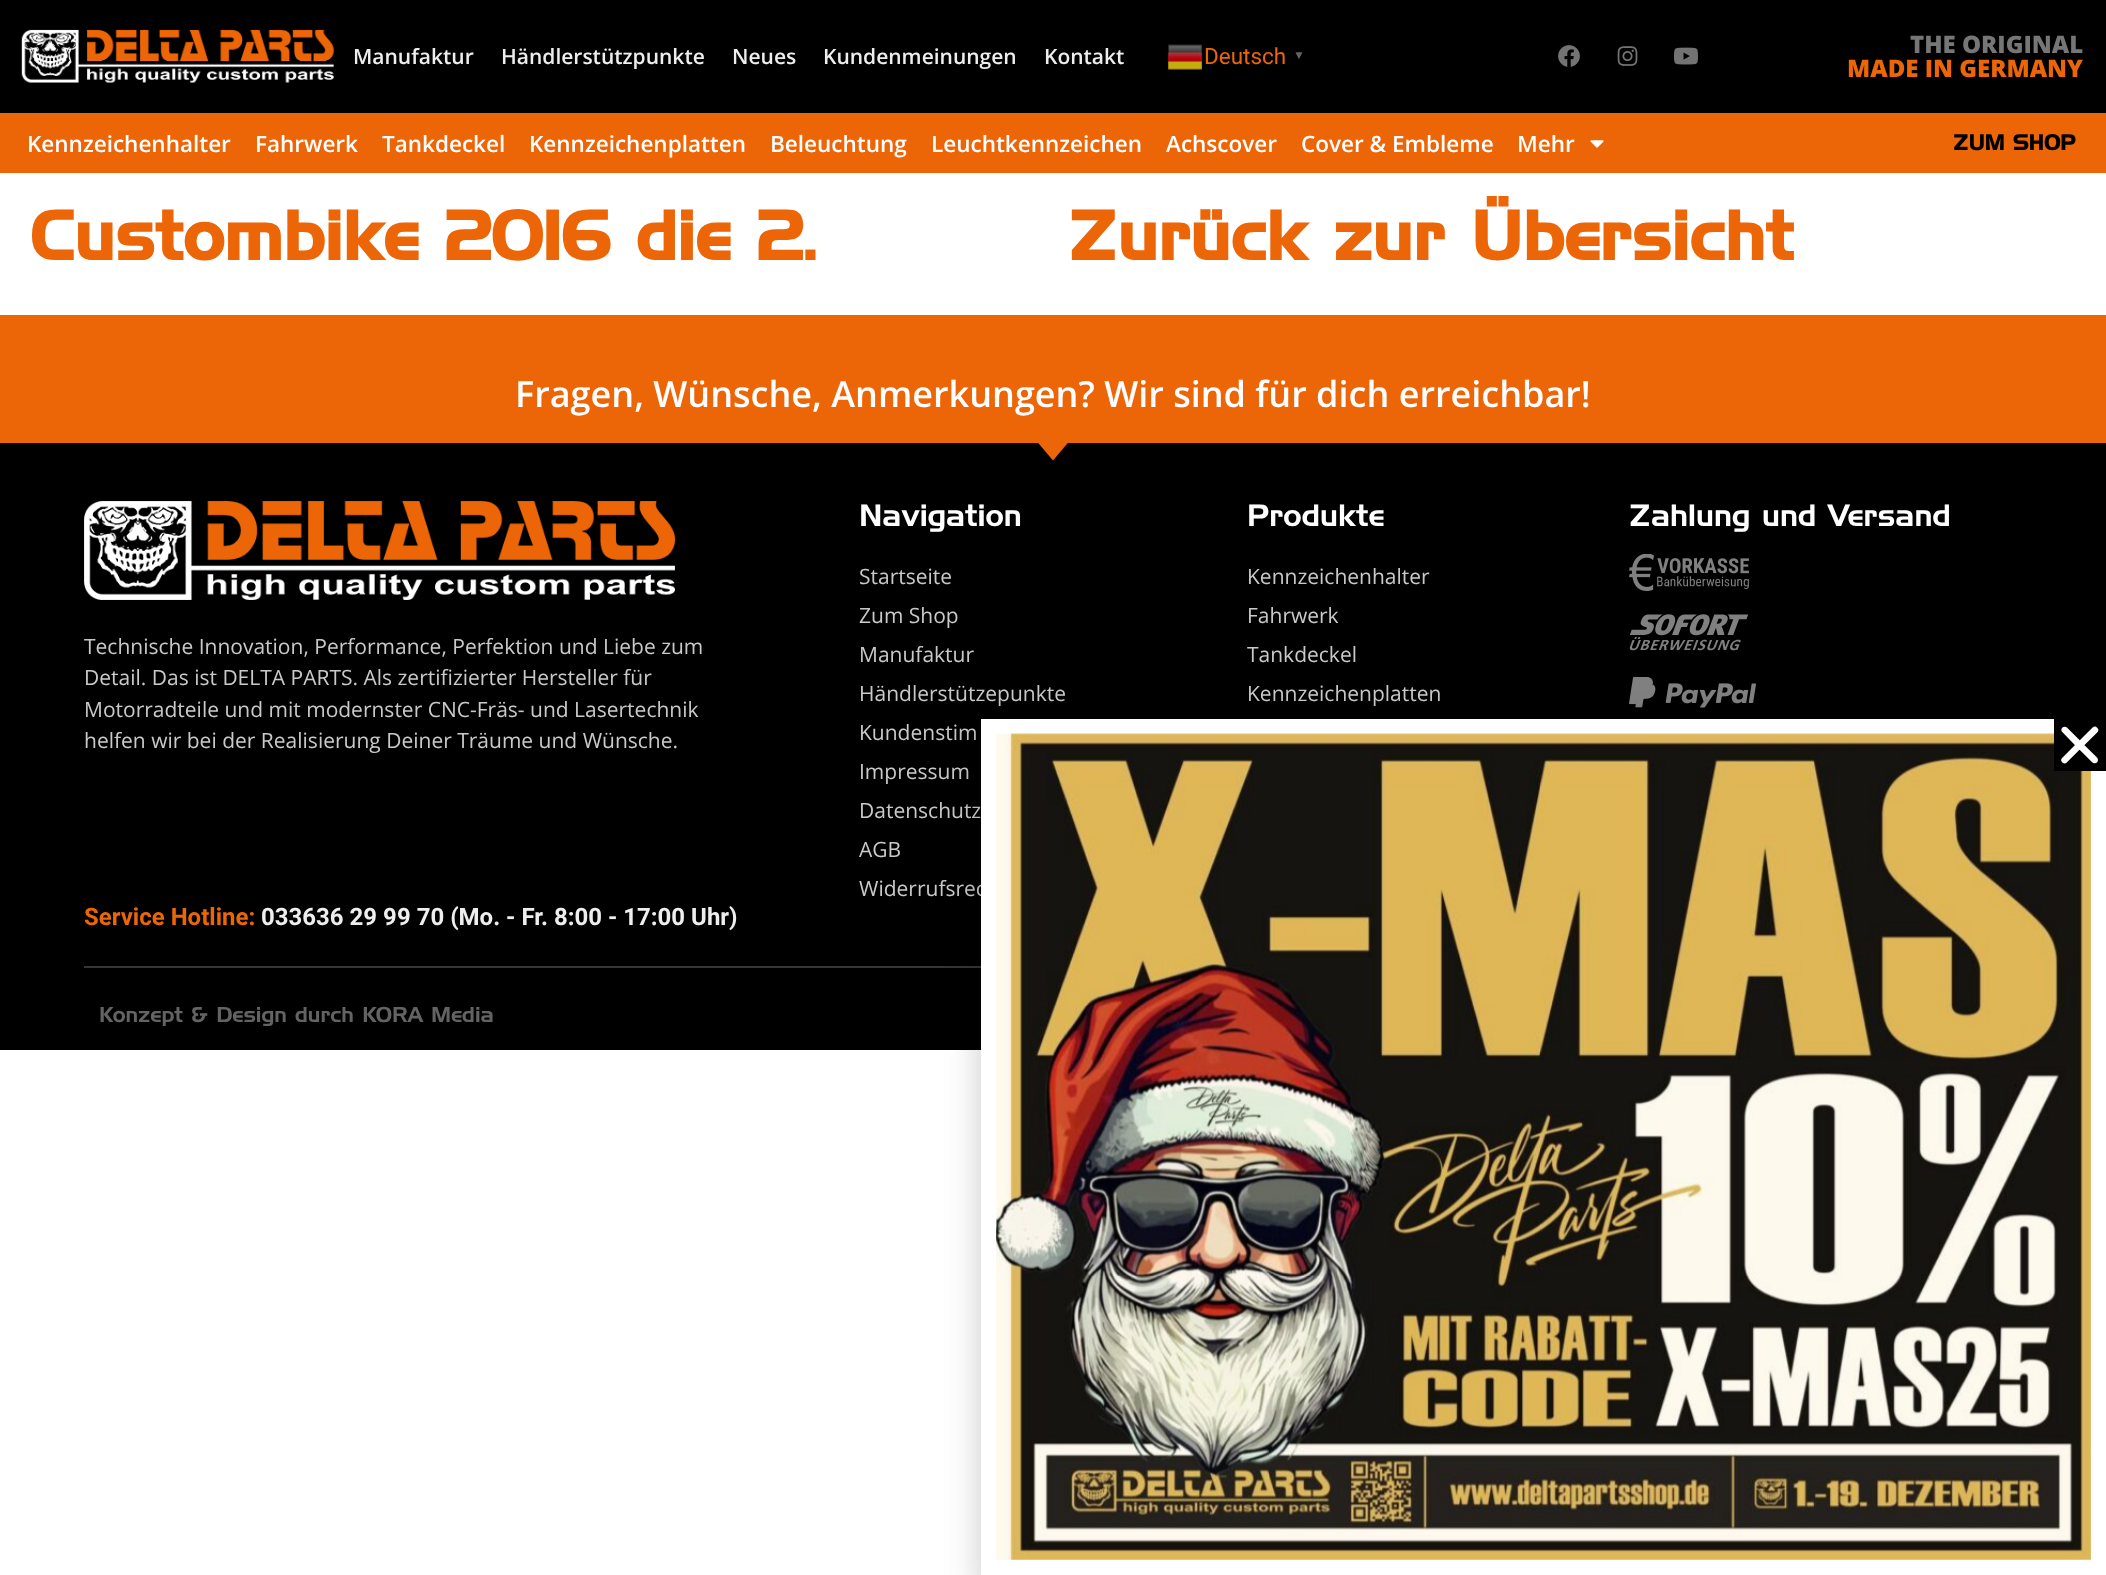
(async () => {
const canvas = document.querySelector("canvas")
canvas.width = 2106
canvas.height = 1575
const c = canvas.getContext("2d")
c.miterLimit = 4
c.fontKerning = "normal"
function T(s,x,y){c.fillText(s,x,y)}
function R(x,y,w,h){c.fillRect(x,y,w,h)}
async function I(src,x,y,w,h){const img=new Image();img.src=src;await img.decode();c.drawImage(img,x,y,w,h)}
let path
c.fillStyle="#fff"
R(0,0,2106,1575)
c.fillStyle="#000"
R(0,0,2106,113)
await I("1.png",21,29,313,54)
c.font="600 21px Open Sans"
c.fillStyle="#eee"
T("Manufaktur",353,64)
T("Händlerstützpunkte",501,64)
T("Neues",732,64)
T("Kundenmeinungen",823,64)
T("Kontakt",1044,64)
await I("2.png",1168,44,34,26)
c.font="22.5px Roboto"
c.fillStyle="#ec6608"
T("Deutsch",1204,64)
c.font="bold 12px Liberation Sans"
c.fillStyle="#636363"
T("▼",1293,59)
await I("3.png",1558,45,22,22)
await I("4.png",1617,46,21,20)
await I("5.png",1674,47,24,18)
c.font="800 24px Open Sans"
c.fillStyle="#767676"
T("THE ORIGINAL",1910,53)
c.fillStyle="#ec6608"
T("MADE IN GERMANY",1847,77)
R(0,113,2106,60)
c.font="600 22.5px Open Sans"
c.fillStyle="#fff"
T("Kennzeichenhalter",27,152)
T("Fahrwerk",255,152)
T("Tankdeckel",382,152)
T("Kennzeichenplatten",529,152)
T("Beleuchtung",770,152)
T("Leuchtkennzeichen",931,152)
T("Achscover",1166,152)
T("Cover & Embleme",1301,152)
T("Mehr",1517,152)
await I("6.png",1590,140,14,8)
c.font="bold 21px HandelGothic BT"
c.fillStyle="#000"
T("ZUM SHOP",1953,150)
c.font="bold 67.5px HandelGothic BT"
c.fillStyle="#ec6608"
T("Custombike 2016 die 2.",30,260)
T("Zurück zur Übersicht",1068,260)
R(0,315,2106,128)
c.font="600 36px Open Sans"
c.fillStyle="#fff"
T("Fragen, Wünsche, Anmerkungen? Wir sind für dich erreichbar!",515,407)
c.fillStyle="#000"
R(0,443,2106,501)
c.fillStyle="#ec6608"
path = new Path2D("M1053 460.5l-16.5-19.5h33z")
c.fill(path)
c.font="30px HandelGothic BT"
c.fillStyle="#fff"
T("Navigation",859,526)
c.font="21px Open Sans"
c.fillStyle="#c9c9c9"
T("Startseite",859,584)
T("Zum Shop",859,623)
T("Manufaktur",859,662)
T("Händlerstützepunkte",859,701)
T("Kundenstim",859,740)
T("Impressum",859,779)
T("Datenschutz",859,818)
T("AGB",859,857)
T("Widerrufsrec",859,896)
c.font="30px HandelGothic BT"
c.fillStyle="#fff"
T("Produkte",1247,526)
c.font="21px Open Sans"
c.fillStyle="#c9c9c9"
T("Kennzeichenhalter",1247,584)
T("Fahrwerk",1247,623)
T("Tankdeckel",1247,662)
T("Kennzeichenplatten",1247,701)
c.font="30px HandelGothic BT"
c.fillStyle="#fff"
T("Zahlung und Versand",1629,526)
await I("7.png",1629,554,120,37)
await I("8.png",1629,614,120,37)
await I("9.png",1629,677,127,31)
await I("10.png",84,501,591,99)
c.font="21px Open Sans"
c.fillStyle="#c9c9c9"
T("Technische Innovation, Performance, Perfektion und Liebe zum",84,654)
T("Detail. Das ist DELTA PARTS. Als zertifizierter Hersteller für",84,685)
T("Motorradteile und mit modernster CNC-Fräs- und Lasertechnik",84,717)
T("helfen wir bei der Realisierung Deiner Träume und Wünsche.",84,748)
c.fillStyle="#000"
R(0,944,981,106)
c.font="bold 24px Roboto"
c.fillStyle="#ec6608"
T("Service Hotline:",84,925)
c.fillStyle="#eee"
T("033636 29 99 70 (Mo. - Fr. 8:00 - 17:00 Uhr)",261,925)
c.fillStyle="#363636"
R(84,966,897,2)
c.font="21px HandelGothic BT"
c.fillStyle="#636363"
T("Konzept & Design durch KORA Media",99,1022)
c.fillStyle="#00000033"
c.filter="blur(17px)"
c.beginPath()
c.rect(980,726,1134,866)
c.fill()
c.filter="none"
c.fillStyle="#fff"
R(981,719,1125,856)
await I("12.png",996,733,1095,827)
c.fillStyle="#000"
R(2054,719,52,52)
await I("11.png",2061,726,38,38)
})()
